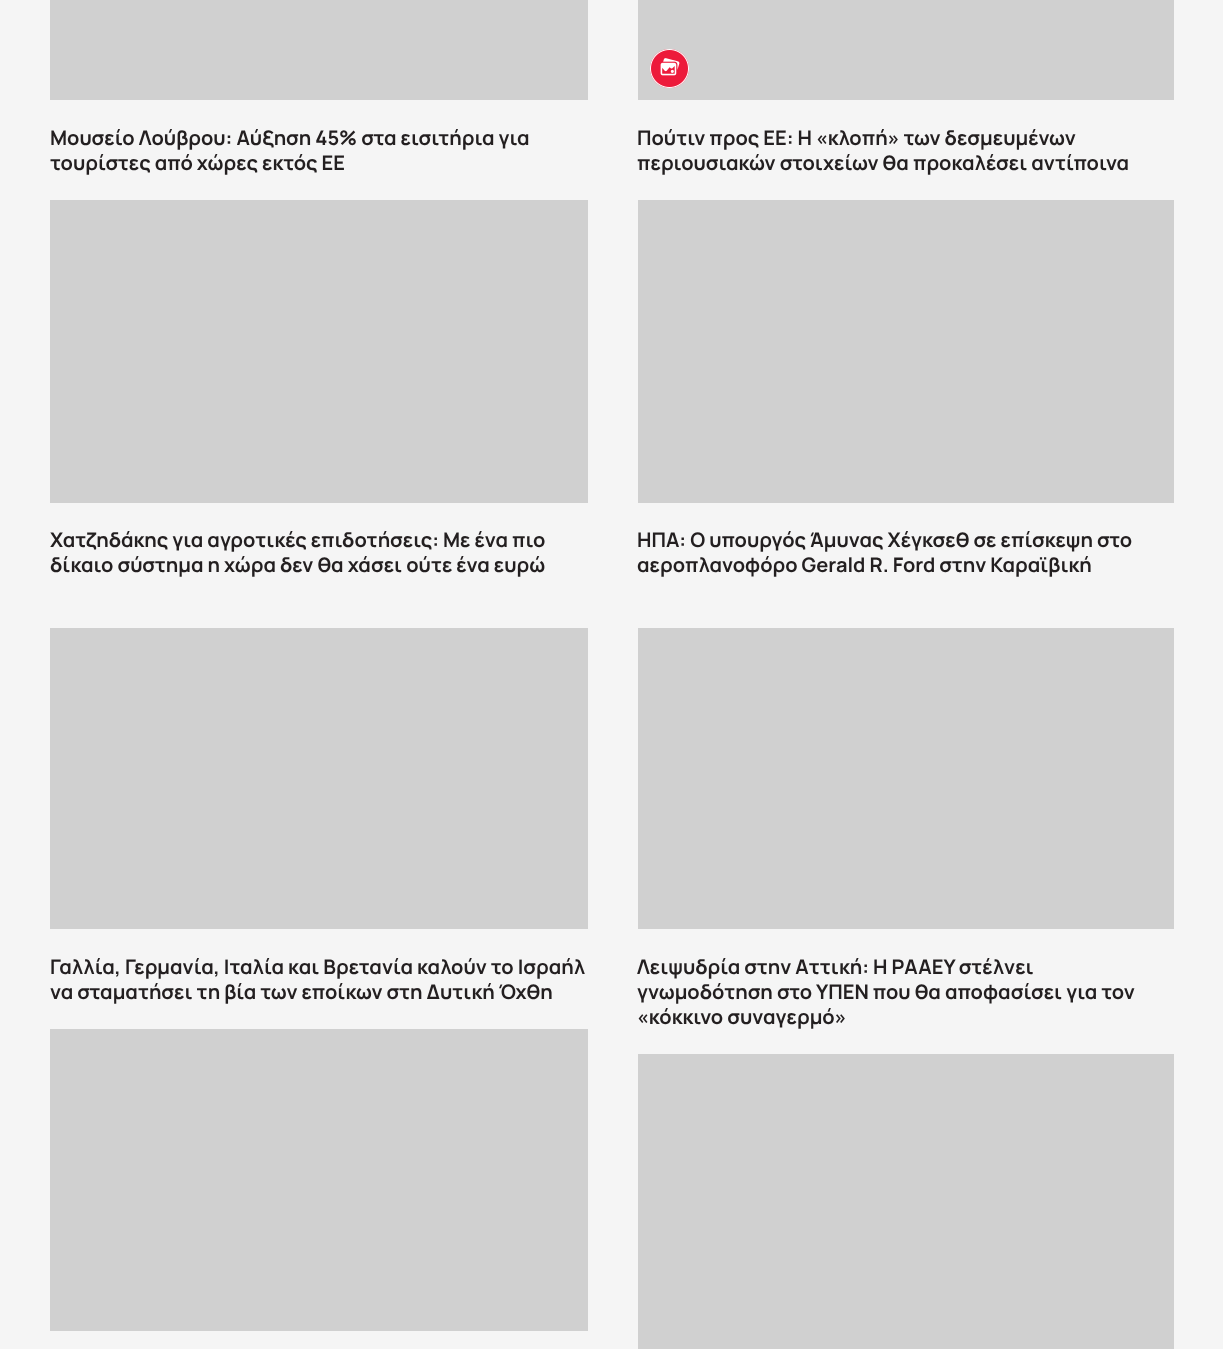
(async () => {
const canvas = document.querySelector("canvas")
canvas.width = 1223
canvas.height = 1349
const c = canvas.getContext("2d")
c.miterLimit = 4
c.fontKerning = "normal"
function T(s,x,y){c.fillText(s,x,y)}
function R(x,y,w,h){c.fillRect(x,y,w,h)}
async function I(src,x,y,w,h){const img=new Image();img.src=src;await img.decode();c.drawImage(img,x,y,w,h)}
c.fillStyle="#f5f5f5"
R(0,0,1223,1349)
c.fillStyle="#d0d0d0"
R(50,0,538,100)
c.font="bold 20px Manrope"
c.fillStyle="#231f20"
T("Μουσείο Λούβρου: Αύξηση 45% στα εισιτήρια για",50,145)
T("τουρίστες από χώρες εκτός ΕΕ",50,170)
c.fillStyle="#d0d0d0"
R(50,200,538,303)
c.fillStyle="#231f20"
T("Χατζηδάκης για αγροτικές επιδοτήσεις: Με ένα πιο",50,547)
T("δίκαιο σύστημα η χώρα δεν θα χάσει ούτε ένα ευρώ",50,572)
c.fillStyle="#d0d0d0"
R(638,0,536,100)
await I("1.png",650,49,39,39)
c.fillStyle="#231f20"
T("Πούτιν προς ΕΕ: Η «κλοπή» των δεσμευμένων",637,145)
T("περιουσιακών στοιχείων θα προκαλέσει αντίποινα",637,170)
c.fillStyle="#d0d0d0"
R(638,200,536,303)
c.fillStyle="#231f20"
T("ΗΠΑ: Ο υπουργός Άμυνας Χέγκσεθ σε επίσκεψη στο",637,547)
T("αεροπλανοφόρο Gerald R. Ford στην Καραϊβική",637,572)
c.fillStyle="#d0d0d0"
R(50,628,538,301)
c.fillStyle="#231f20"
T("Γαλλία, Γερμανία, Ιταλία και Βρετανία καλούν το Ισραήλ",50,974)
T("να σταματήσει τη βία των εποίκων στη Δυτική Όχθη",50,999)
c.fillStyle="#d0d0d0"
R(50,1029,538,302)
R(638,628,536,301)
c.fillStyle="#231f20"
T("Λειψυδρία στην Αττική: Η ΡΑΑΕΥ στέλνει",637,974)
T("γνωμοδότηση στο ΥΠΕΝ που θα αποφασίσει για τον",637,999)
T("«κόκκινο συναγερμό»",637,1024)
c.fillStyle="#d0d0d0"
R(638,1054,536,295)
})()
